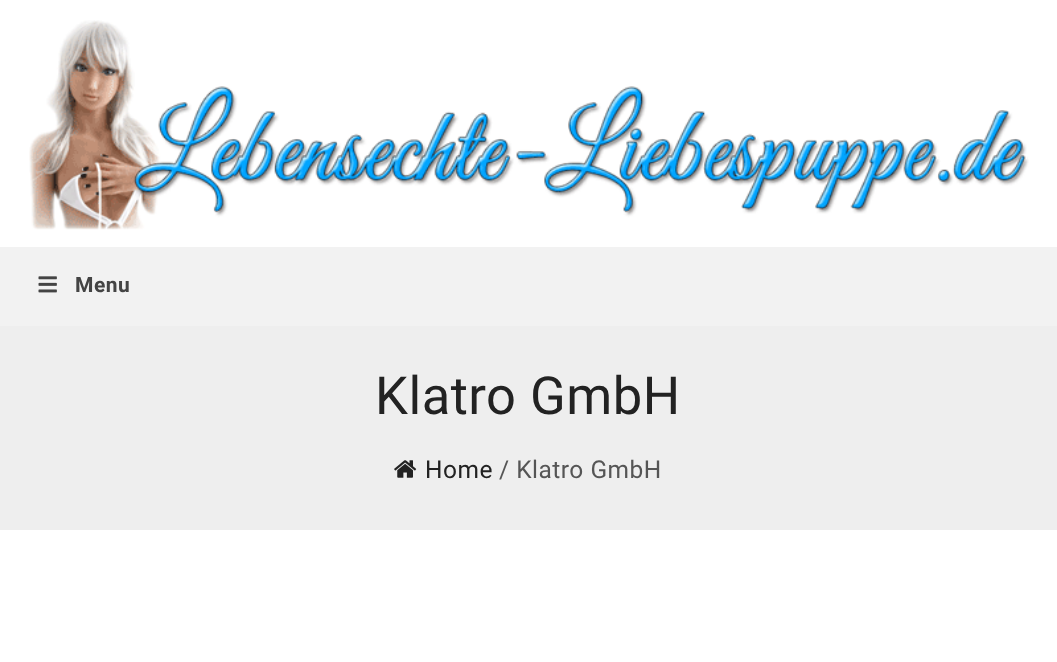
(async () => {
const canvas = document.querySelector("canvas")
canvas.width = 1057
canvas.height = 662
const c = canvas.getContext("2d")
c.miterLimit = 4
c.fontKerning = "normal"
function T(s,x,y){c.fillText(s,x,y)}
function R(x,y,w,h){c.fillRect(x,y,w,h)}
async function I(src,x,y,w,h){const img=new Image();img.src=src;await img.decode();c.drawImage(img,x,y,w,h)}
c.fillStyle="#fff"
R(0,0,1057,662)
await I("1.png",29,20,1000,210)
c.fillStyle="#f2f2f2"
R(0,247,1057,79)
await I("2.png",38,276,19,17)
c.letterSpacing="0.5px"
c.font="bold 21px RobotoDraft"
c.fillStyle="#444"
T("Menu",75,292)
c.fillStyle="#eee"
R(0,326,1057,204)
c.font="52.5px RobotoDraft"
c.fillStyle="#222"
T("Klatro GmbH",375,414)
await I("3.png",394,460,23,18)
c.font="24.5px RobotoDraft"
T("Home",425,478)
c.fillStyle="#555"
T("/ Klatro GmbH",499,478)
})()
